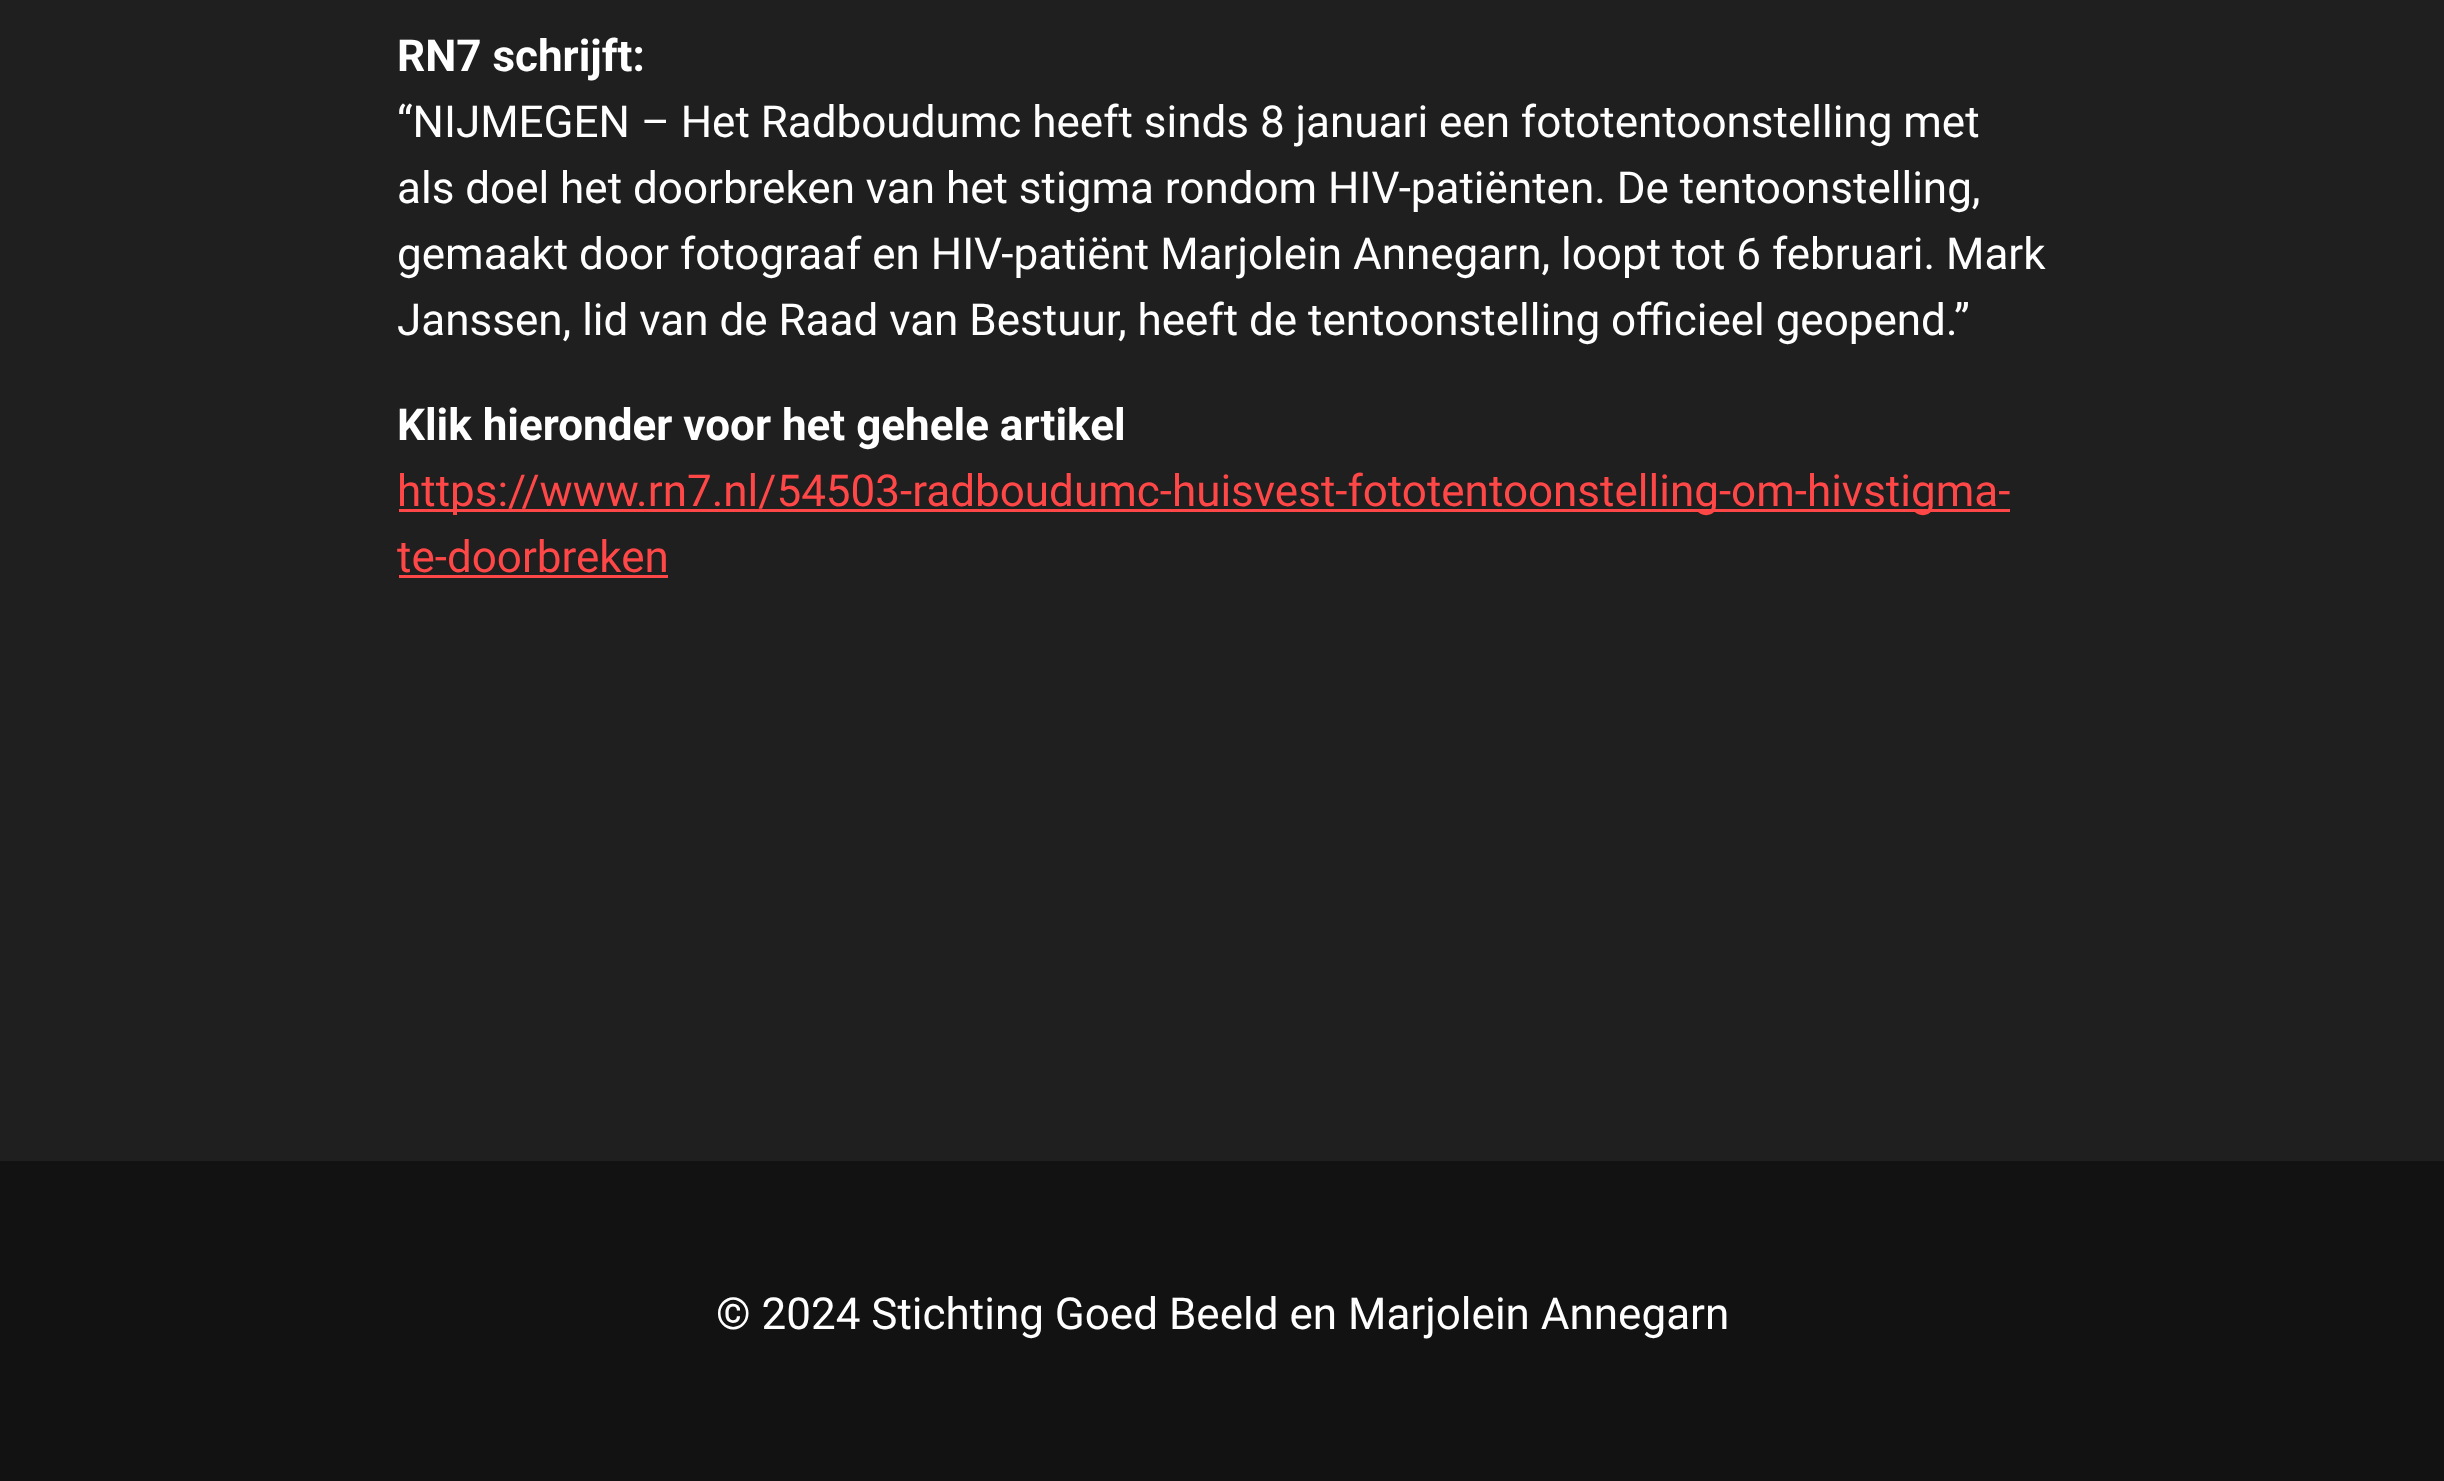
(async () => {
const canvas = document.querySelector("canvas")
canvas.width = 2444
canvas.height = 1481
const c = canvas.getContext("2d")
c.miterLimit = 4
c.fontKerning = "normal"
function T(s,x,y){c.fillText(s,x,y)}
function R(x,y,w,h){c.fillRect(x,y,w,h)}
c.fillStyle="#1f1f1f"
R(0,0,2444,1481)
c.font="bold 44px Roboto"
c.fillStyle="#fff"
T("RN7 schrijft:",397,71)
c.font="44px Roboto"
T("“NIJMEGEN – Het Radboudumc heeft sinds 8 januari een fototentoonstelling met",397,137)
T("als doel het doorbreken van het stigma rondom HIV-patiënten. De tentoonstelling,",397,203)
T("gemaakt door fotograaf en HIV-patiënt Marjolein Annegarn, loopt tot 6 februari. Mark",397,269)
T("Janssen, lid van de Raad van Bestuur, heeft de tentoonstelling officieel geopend.”",397,335)
c.font="bold 44px Roboto"
T("Klik hieronder voor het gehele artikel",397,440)
c.fillStyle="#ff4747"
R(399,509,1611,3)
c.font="44px Roboto"
T("https://www.rn7.nl/54503-radboudumc-huisvest-fototentoonstelling-om-hivstigma-",397,506)
T("te-doorbreken",397,572)
R(399,575,269,3)
c.fillStyle="#121212"
R(0,1161,2444,320)
c.fillStyle="#fff"
T("© 2024 Stichting Goed Beeld en Marjolein Annegarn",716,1329)
})()
